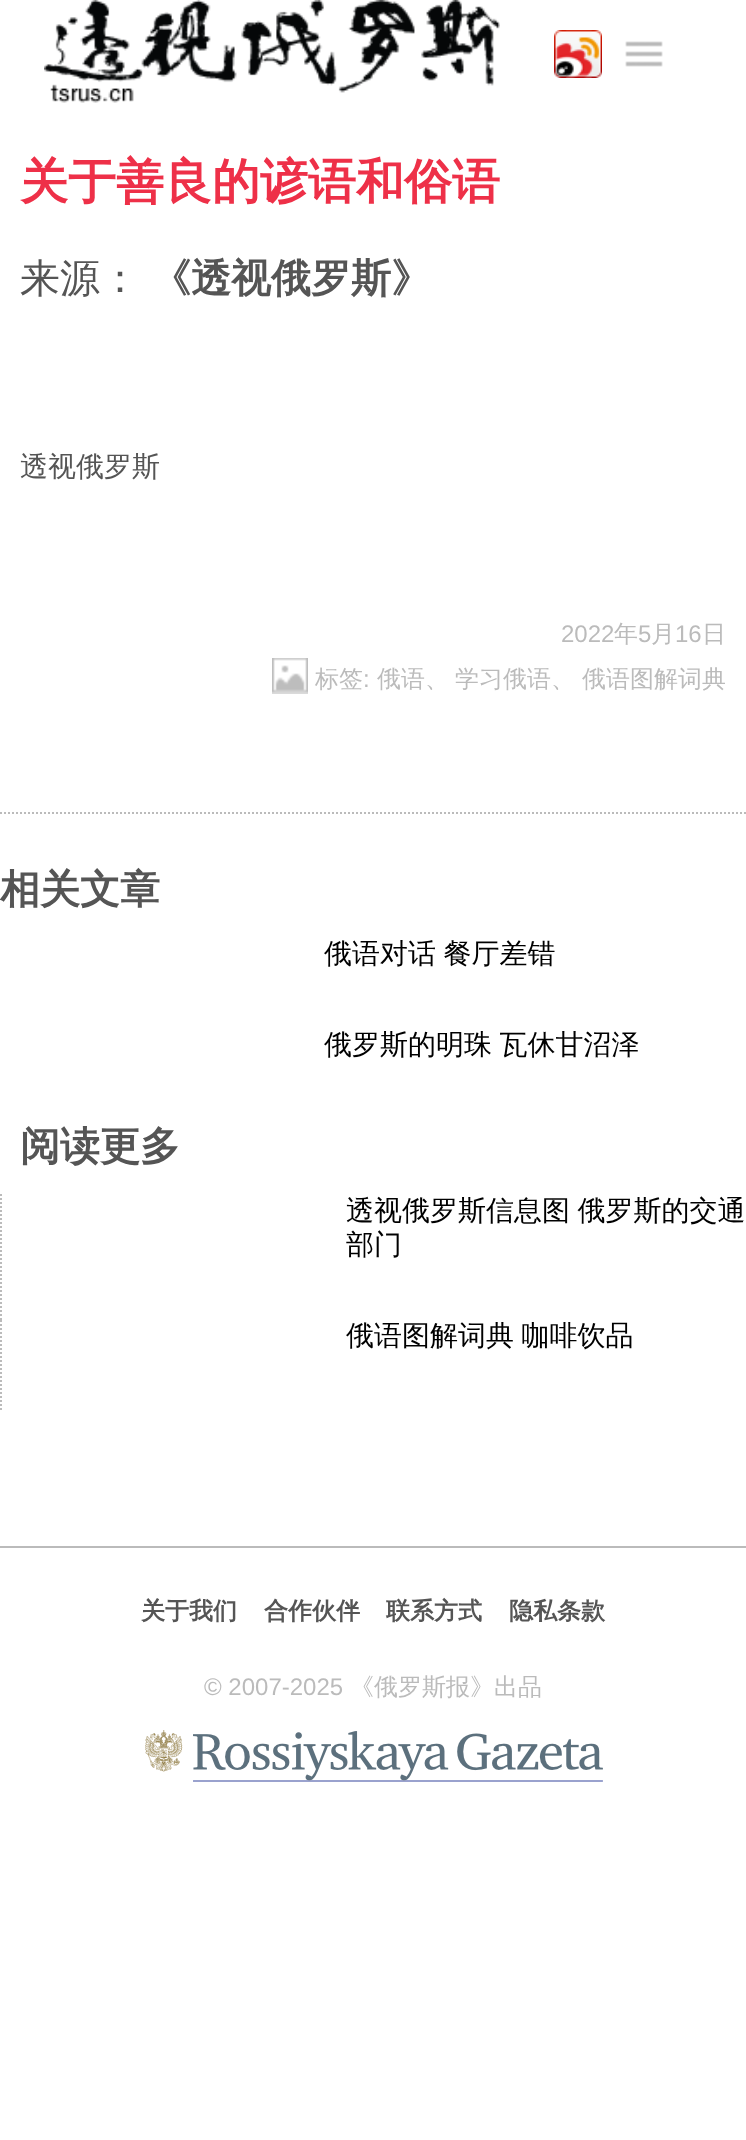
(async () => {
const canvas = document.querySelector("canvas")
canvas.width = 746
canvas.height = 2140
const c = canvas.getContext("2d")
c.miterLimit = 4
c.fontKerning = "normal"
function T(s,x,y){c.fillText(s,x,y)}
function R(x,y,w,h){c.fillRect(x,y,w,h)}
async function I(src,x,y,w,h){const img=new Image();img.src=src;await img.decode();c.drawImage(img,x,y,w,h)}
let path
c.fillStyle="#fff"
R(0,0,746,2140)
await I("1.png",44,0,456,103)
await I("2.png",554,30,48,48)
await I("3.png",625,41,38,26)
c.font="bold 48px WenQuanYi Zen Hei"
c.fillStyle="#ee3048"
T("关于善良的谚语和俗语",20,198)
c.font="500 40px WenQuanYi Zen Hei"
c.fillStyle="#555"
T("来源：",20,292)
c.font="bold 40px WenQuanYi Zen Hei"
T("《透视俄罗斯》",151,292)
c.font="500 28px WenQuanYi Zen Hei"
T("透视俄罗斯",20,476)
c.font="24px Liberation Sans"
c.fillStyle="#bbb"
T("2022",561,642)
c.font="500 24px WenQuanYi Zen Hei"
T("年",614,642)
c.font="24px Liberation Sans"
T("5",638,642)
c.font="500 24px WenQuanYi Zen Hei"
T("月",651,642)
c.font="24px Liberation Sans"
T("16",675,642)
c.font="500 24px WenQuanYi Zen Hei"
T("日",702,642)
await I("4.png",272,658,36,36)
T("标签",315,687)
c.font="24px Liberation Sans"
T(":",363,687)
c.font="500 24px WenQuanYi Zen Hei"
T("俄语、",377,687)
T("学习俄语、",455,687)
T("俄语图解词典",582,687)
path = new Path2D("M0 813h746")
c.strokeStyle="#bbb"
c.lineWidth=2
c.setLineDash([2,2])
c.stroke(path)
c.font="bold 40px WenQuanYi Zen Hei"
c.fillStyle="#555"
T("相关文章",0,903)
c.wordSpacing="-1px"
c.font="500 28px WenQuanYi Zen Hei"
c.fillStyle="#000"
T("俄语对话 餐厅差错",324,963)
T("俄罗斯的明珠 瓦休甘沼泽",324,1054)
c.wordSpacing="0px"
c.font="bold 40px WenQuanYi Zen Hei"
c.fillStyle="#555"
T("阅读更多",20,1160)
path = new Path2D("M1 1194v126")
c.stroke(path)
c.wordSpacing="-1px"
c.font="500 28px WenQuanYi Zen Hei"
c.fillStyle="#000"
T("透视俄罗斯信息图 俄罗斯的交通",346,1220)
c.wordSpacing="0px"
T("部门",346,1254)
path = new Path2D("M1 1320v90")
c.stroke(path)
c.wordSpacing="-1px"
T("俄语图解词典 咖啡饮品",346,1345)
c.fillStyle="#bbb"
R(0,1546,746,2)
c.wordSpacing="0px"
c.font="bold 24px WenQuanYi Zen Hei"
c.fillStyle="#555"
T("关于我们",141,1619)
T("合作伙伴",264,1619)
T("联系方式",386,1619)
T("隐私条款",509,1619)
c.font="24px Liberation Sans"
c.fillStyle="#bbb"
T("© 2007-2025",204,1695)
c.font="500 24px WenQuanYi Zen Hei"
T("《俄罗斯报》出品",350,1695)
await I("5.png",145,1730,458,52)
})()
